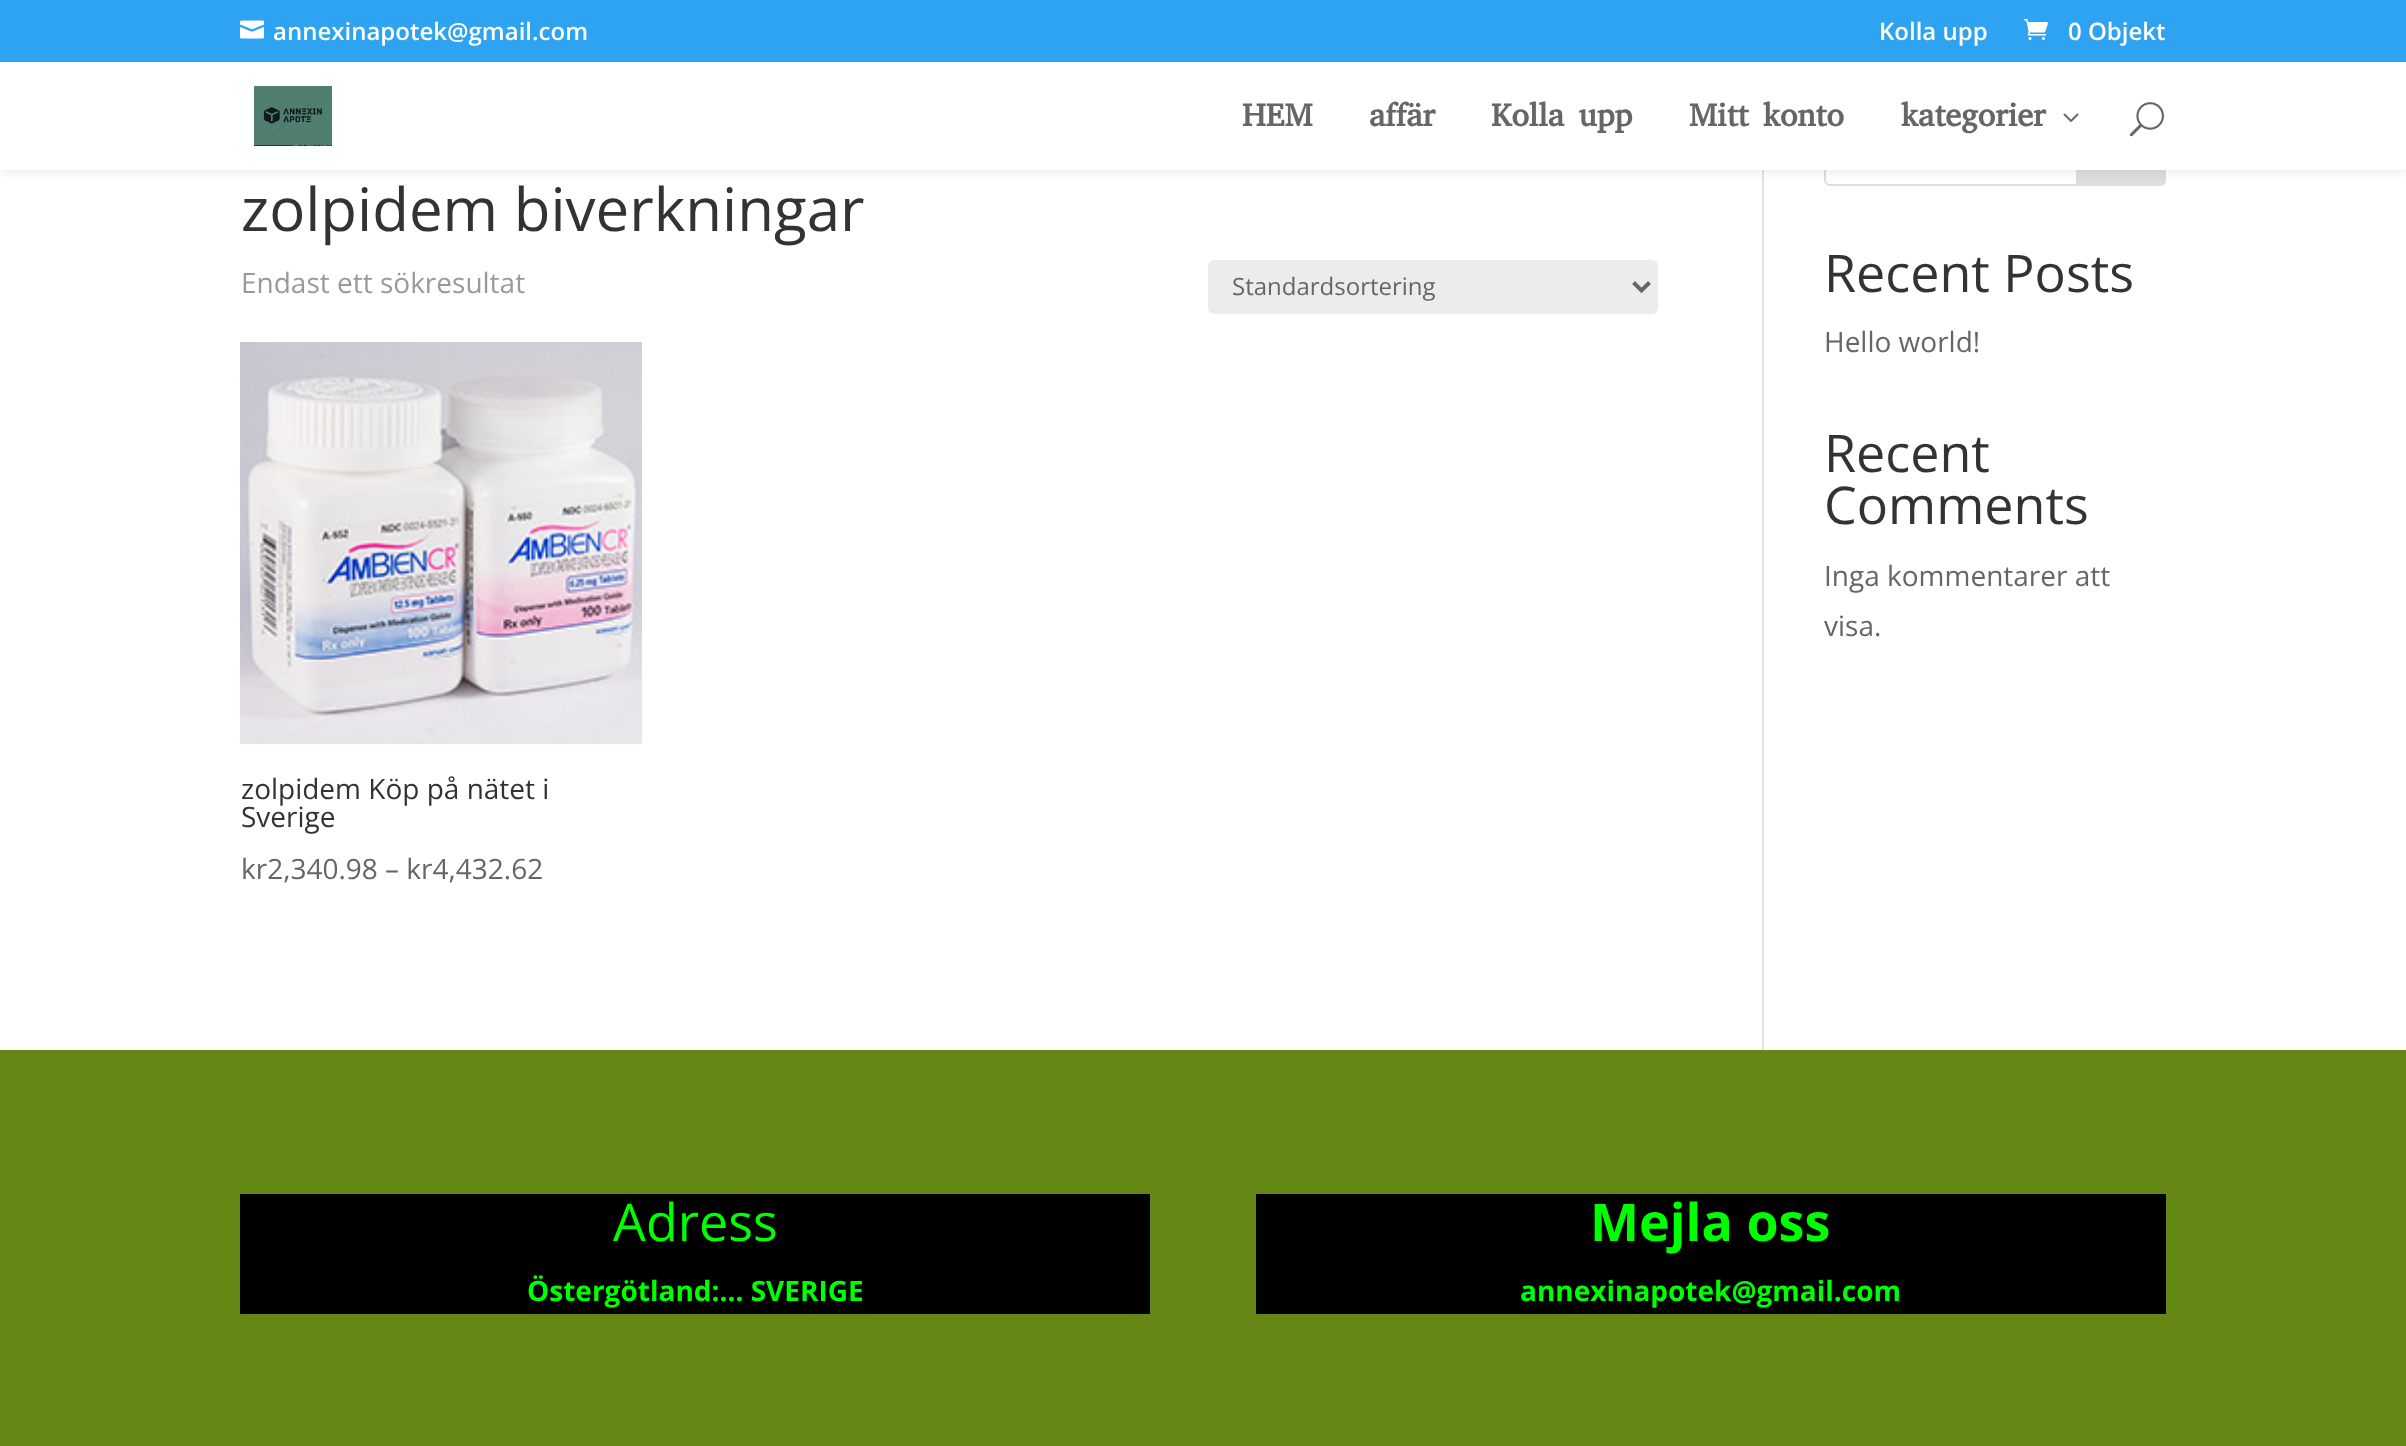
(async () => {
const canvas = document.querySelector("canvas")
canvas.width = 2406
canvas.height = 1446
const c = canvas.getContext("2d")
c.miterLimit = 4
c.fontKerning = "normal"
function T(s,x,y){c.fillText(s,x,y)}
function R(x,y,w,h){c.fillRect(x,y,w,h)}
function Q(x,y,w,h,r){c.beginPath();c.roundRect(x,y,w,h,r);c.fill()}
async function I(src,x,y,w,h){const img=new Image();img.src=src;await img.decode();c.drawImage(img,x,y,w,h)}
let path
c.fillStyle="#fff"
R(0,0,2406,1446)
c.fillStyle="#e2e2e2"
R(1762,170,2,880)
c.beginPath()
c.roundRect(1825,107,340,78,5)
c.strokeStyle="#ddd"
c.lineWidth=2
c.stroke()
c.fillStyle="#ddd"
c.beginPath()
c.roundRect(2077,107,88,78,[0,5,5,0])
c.fill()
c.stroke()
c.fillStyle="#0000001a"
c.filter="blur(7px)"
c.beginPath()
c.rect(0,62,2406,108)
c.fill()
c.filter="none"
c.fillStyle="#2ea3f2"
R(0,0,2406,62)
await I("1.png",240,20,24,19)
c.font="600 24px Open Sans"
c.fillStyle="#fff"
T("annexinapotek@gmail.com",273,40)
T("Kolla upp",1879,40)
await I("2.png",2024,19,24,21)
T("0 Objekt",2068,40)
R(0,62,2406,108)
await I("3.png",254,86,78,60)
c.font="bold 32px Abyssinica SIL"
c.fillStyle="#666"
T("HEM",1242,126)
T("affär",1369,126)
T("Kolla upp",1491,126)
T("Mitt konto",1689,126)
T("kategorier",1901,126)
await I("4.png",2063,113,16,9)
await I("5.png",2129,102,35,35)
c.font="60px Open Sans"
c.fillStyle="#333"
T("zolpidem biverkningar",241,231)
c.font="28px Open Sans"
c.fillStyle="#999"
T("Endast ett sökresultat",241,293)
c.fillStyle="#ececec"
Q(1208,260,450,54,6)
path = new Path2D("M1633.5 282.5l8 8l8-8")
c.strokeStyle="#666"
c.lineWidth=4
c.stroke(path)
c.font="24px Open Sans"
c.fillStyle="#666"
T("Standardsortering",1232,295)
await I("6.png",240,342,402,402)
c.font="28px Open Sans"
c.fillStyle="#333"
T("zolpidem Köp på nätet i",241,799)
T("Sverige",241,827)
c.fillStyle="#666"
T("kr2,340.98 – kr4,432.62",241,879)
c.font="52px Open Sans"
c.fillStyle="#333"
T("Recent Posts",1824,292)
c.font="28px Open Sans"
c.fillStyle="#666"
T("Hello world!",1824,352)
c.font="52px Open Sans"
c.fillStyle="#333"
T("Recent",1824,472)
T("Comments",1824,524)
c.font="28px Open Sans"
c.fillStyle="#666"
T("Inga kommentarer att",1824,586)
T("visa.",1824,636)
c.fillStyle="#658716"
R(0,1050,2406,396)
c.fillStyle="#000"
R(240,1194,910,120)
c.font="52px Open Sans"
c.fillStyle="#0f0"
T("Adress",613,1241)
c.font="bold 28px Open Sans"
T("Östergötland:… SVERIGE",527,1301)
c.fillStyle="#000"
R(1256,1194,910,120)
c.font="bold 52px Open Sans"
c.fillStyle="#0f0"
T("Mejla oss",1590,1241)
c.font="bold 28px Open Sans"
T("annexinapotek@gmail.com",1520,1301)
})()
